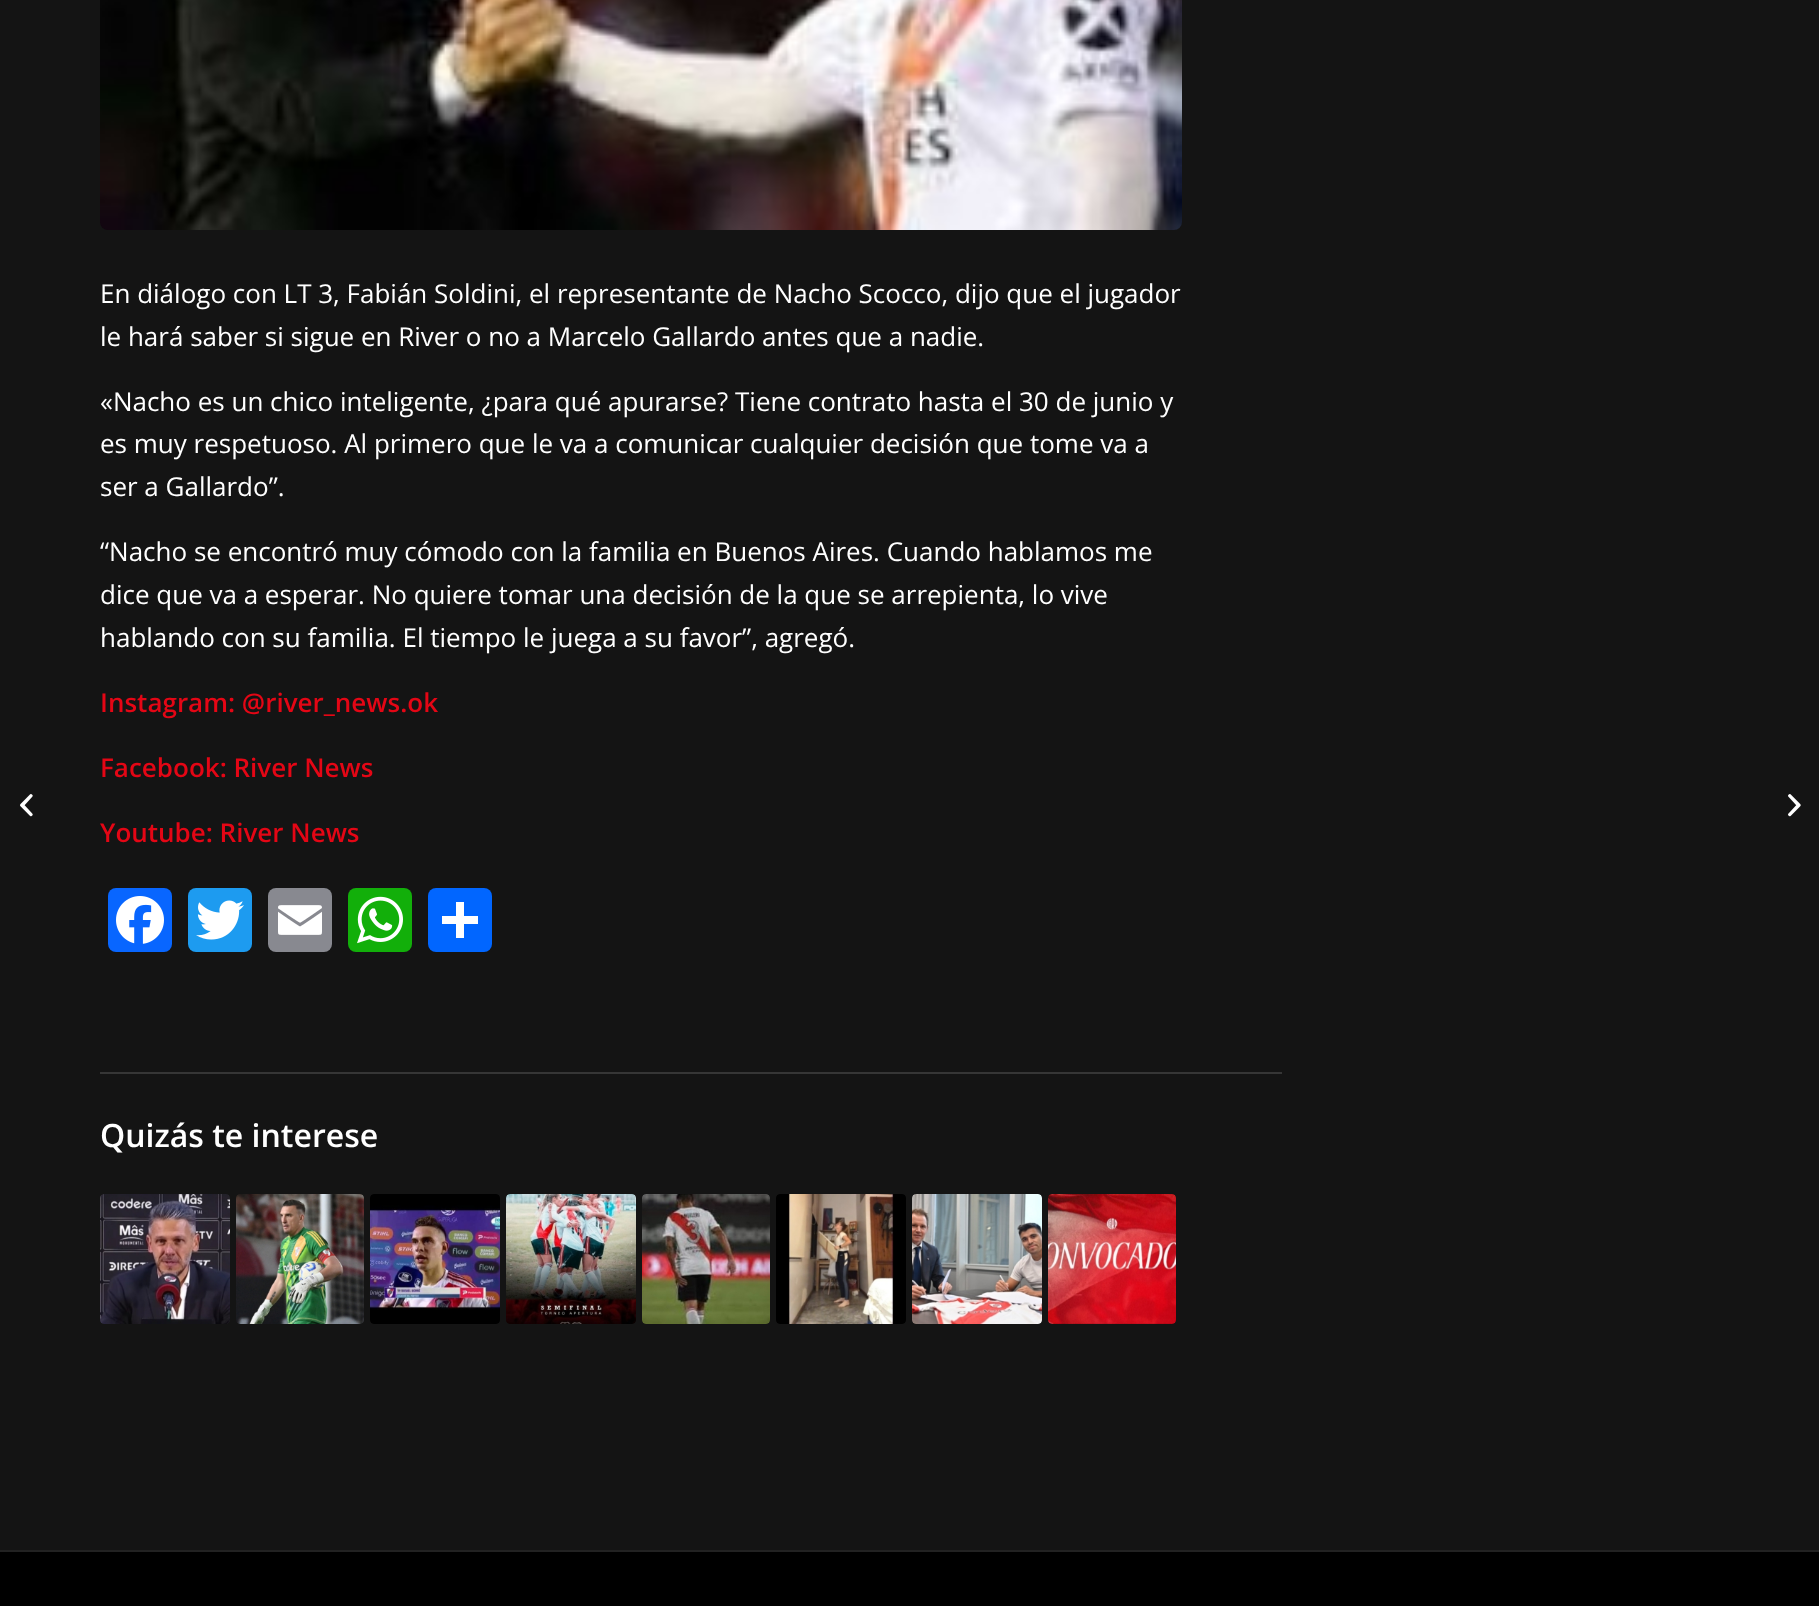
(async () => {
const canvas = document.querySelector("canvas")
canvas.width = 1819
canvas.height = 1606
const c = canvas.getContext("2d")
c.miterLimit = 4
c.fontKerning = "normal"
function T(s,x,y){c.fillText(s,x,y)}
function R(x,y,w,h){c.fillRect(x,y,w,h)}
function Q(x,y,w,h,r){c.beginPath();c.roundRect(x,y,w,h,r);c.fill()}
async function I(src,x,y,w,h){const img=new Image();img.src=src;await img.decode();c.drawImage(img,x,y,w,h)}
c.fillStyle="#141414"
R(0,0,1819,1606)
await I("1.png",20,794,13,23)
await I("2.png",100,0,1082,230)
c.font="26px Open Sans"
c.fillStyle="#fff"
T("En diálogo con LT 3, Fabián Soldini, el representante de Nacho Scocco, dijo que el jugador",100,303)
T("le hará saber si sigue en River o no a Marcelo Gallardo antes que a nadie.",100,346)
T("«Nacho es un chico inteligente, ¿para qué apurarse? Tiene contrato hasta el 30 de junio y",100,411)
T("es muy respetuoso. Al primero que le va a comunicar cualquier decisión que tome va a",100,453)
T("ser a Gallardo”.",100,496)
T("“Nacho se encontró muy cómodo con la familia en Buenos Aires. Cuando hablamos me",100,561)
T("dice que va a esperar. No quiere tomar una decisión de la que se arrepienta, lo vive",100,604)
T("hablando con su familia. El tiempo le juega a su favor”, agregó.",100,647)
c.font="600 26px Open Sans"
c.fillStyle="#e40615"
T("Instagram: @river_news.ok",100,712)
T("Facebook: River News",100,777)
T("Youtube: River News",100,842)
c.fillStyle="#0866ff"
Q(108,888,64,64,8)
await I("3.png",116,896,48,48)
c.fillStyle="#1d9bf0"
Q(188,888,64,64,8)
await I("4.png",196,900,48,40)
c.fillStyle="#888990"
Q(268,888,64,64,8)
await I("5.png",278,905,44,30)
c.fillStyle="#12af0a"
Q(348,888,64,64,8)
await I("6.png",357,896,46,48)
c.fillStyle="#0166ff"
Q(428,888,64,64,8)
c.fillStyle="#fff"
R(456,902,8,36)
R(442,916,36,8)
c.fillStyle="#363636"
R(100,1072,1182,2)
c.font="600 32px Open Sans"
c.fillStyle="#fff"
T("Quizás te interese",100,1147)
await I("7.png",100,1194,130,130)
await I("8.png",236,1194,128,130)
await I("9.png",370,1194,130,130)
await I("10.png",506,1194,130,130)
await I("11.png",642,1194,128,130)
await I("12.png",776,1194,130,130)
await I("13.png",912,1194,130,130)
await I("14.png",1048,1194,128,130)
c.fillStyle="#000"
R(0,1552,1819,54)
c.fillStyle="#222"
R(0,1550,1819,2)
await I("15.png",1788,794,13,23)
})()
